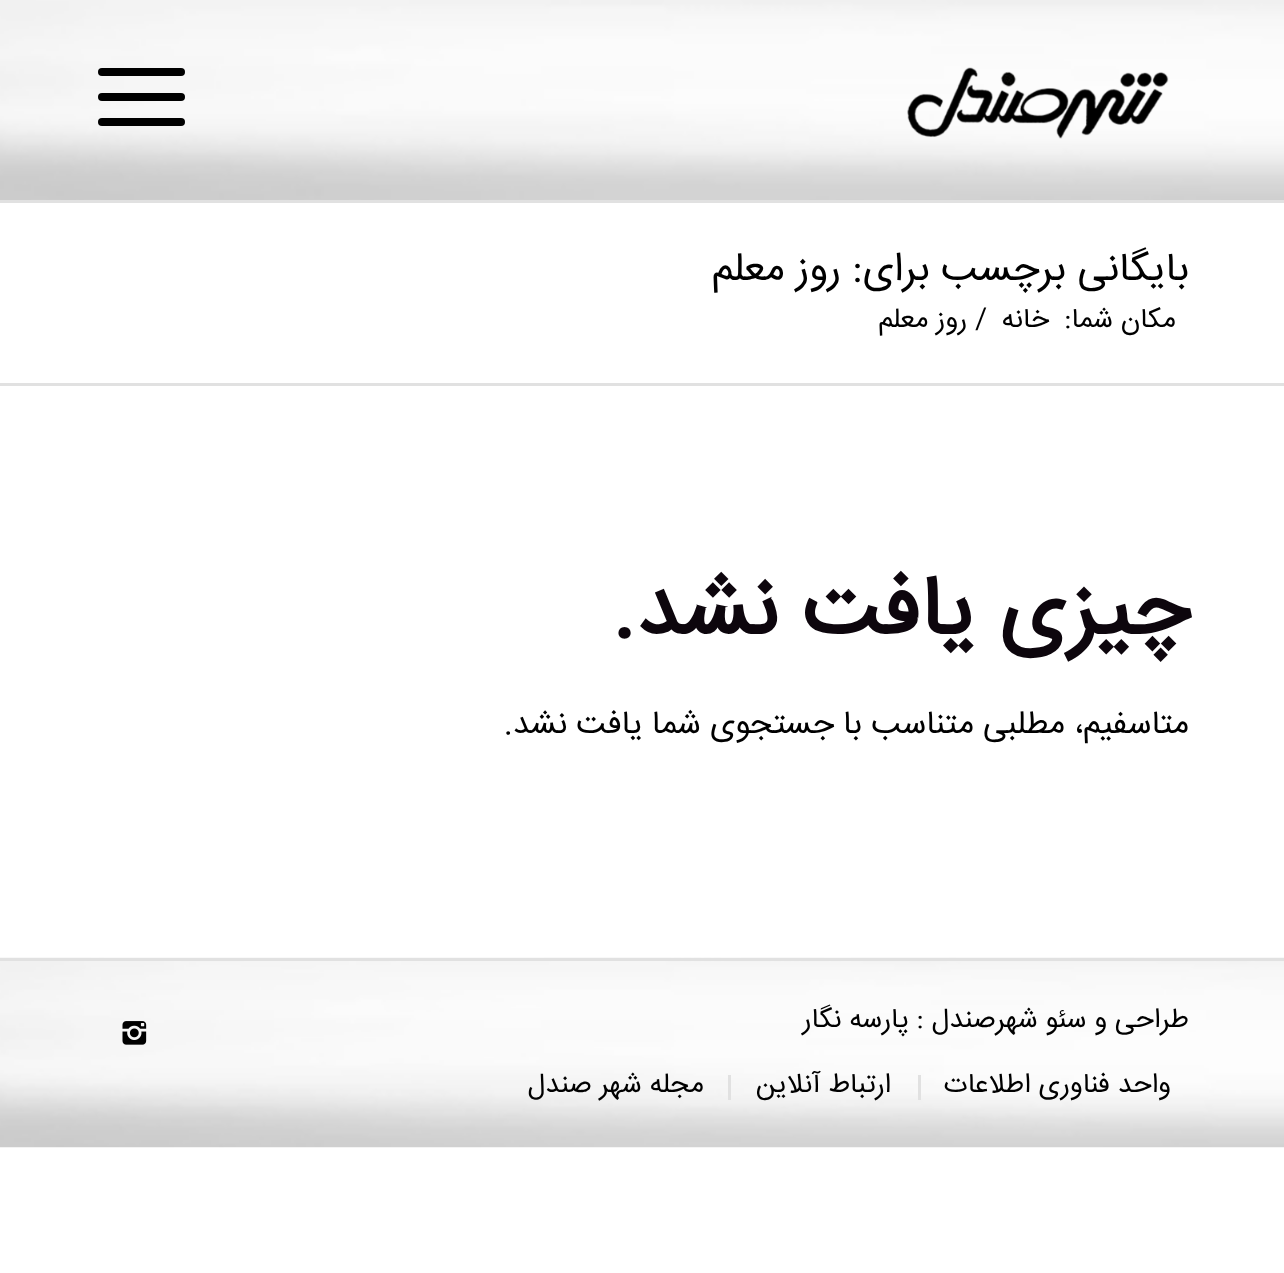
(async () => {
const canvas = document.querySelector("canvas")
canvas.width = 1284
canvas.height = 1273
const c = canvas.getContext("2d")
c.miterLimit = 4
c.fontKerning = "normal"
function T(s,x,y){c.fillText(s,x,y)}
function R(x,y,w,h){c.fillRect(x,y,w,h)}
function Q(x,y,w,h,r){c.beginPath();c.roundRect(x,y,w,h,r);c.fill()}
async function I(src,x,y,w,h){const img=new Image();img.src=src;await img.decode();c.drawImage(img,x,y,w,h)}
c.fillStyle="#fff"
R(0,0,1284,1273)
await I("1.png",0,0,1284,200)
c.fillStyle="#e1e1e1"
R(0,200,1284,3)
await I("2.png",907,67,262,72)
c.fillStyle="#000"
Q(98,93,87,8,4)
Q(98,68,87,8,4)
Q(98,118,87,8,4)
c.direction="rtl"
c.font="40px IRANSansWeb"
T("بایگانی برچسب برای: روز معلم",1189,280)
c.font="27.5px IRANSansWeb"
T("مکان شما:",1176,327)
T("خانه",1049,327)
c.direction="ltr"
T("/",975,327)
c.direction="rtl"
T("روز معلم",967,327)
c.fillStyle="#e1e1e1"
R(0,383,1284,3)
c.font="bold 85px IRANSansWeb"
c.fillStyle="#0d060d"
T("چیزی یافت نشد.",1189,634)
c.font="32.5px IRANSansWeb"
c.fillStyle="#000"
T("متاسفیم، مطلبی متناسب با جستجوی شما یافت نشد.",1189,733)
await I("3.png",0,957,1284,191)
c.fillStyle="#e1e1e1"
R(0,958,1284,3)
c.font="27.5px IRANSansWeb"
c.fillStyle="#000"
T("طراحی و سئو شهرصندل : پارسه نگار",1189,1027)
await I("4.png",122,1021,25,24)
T("واحد فناوری اطلاعات",1171,1092)
c.fillStyle="#e1e1e1"
R(918,1075,3,25)
c.fillStyle="#000"
T("ارتباط آنلاین",891,1092)
c.fillStyle="#e1e1e1"
R(728,1075,3,25)
c.fillStyle="#000"
T("مجله شهر صندل",704,1092)
})()
